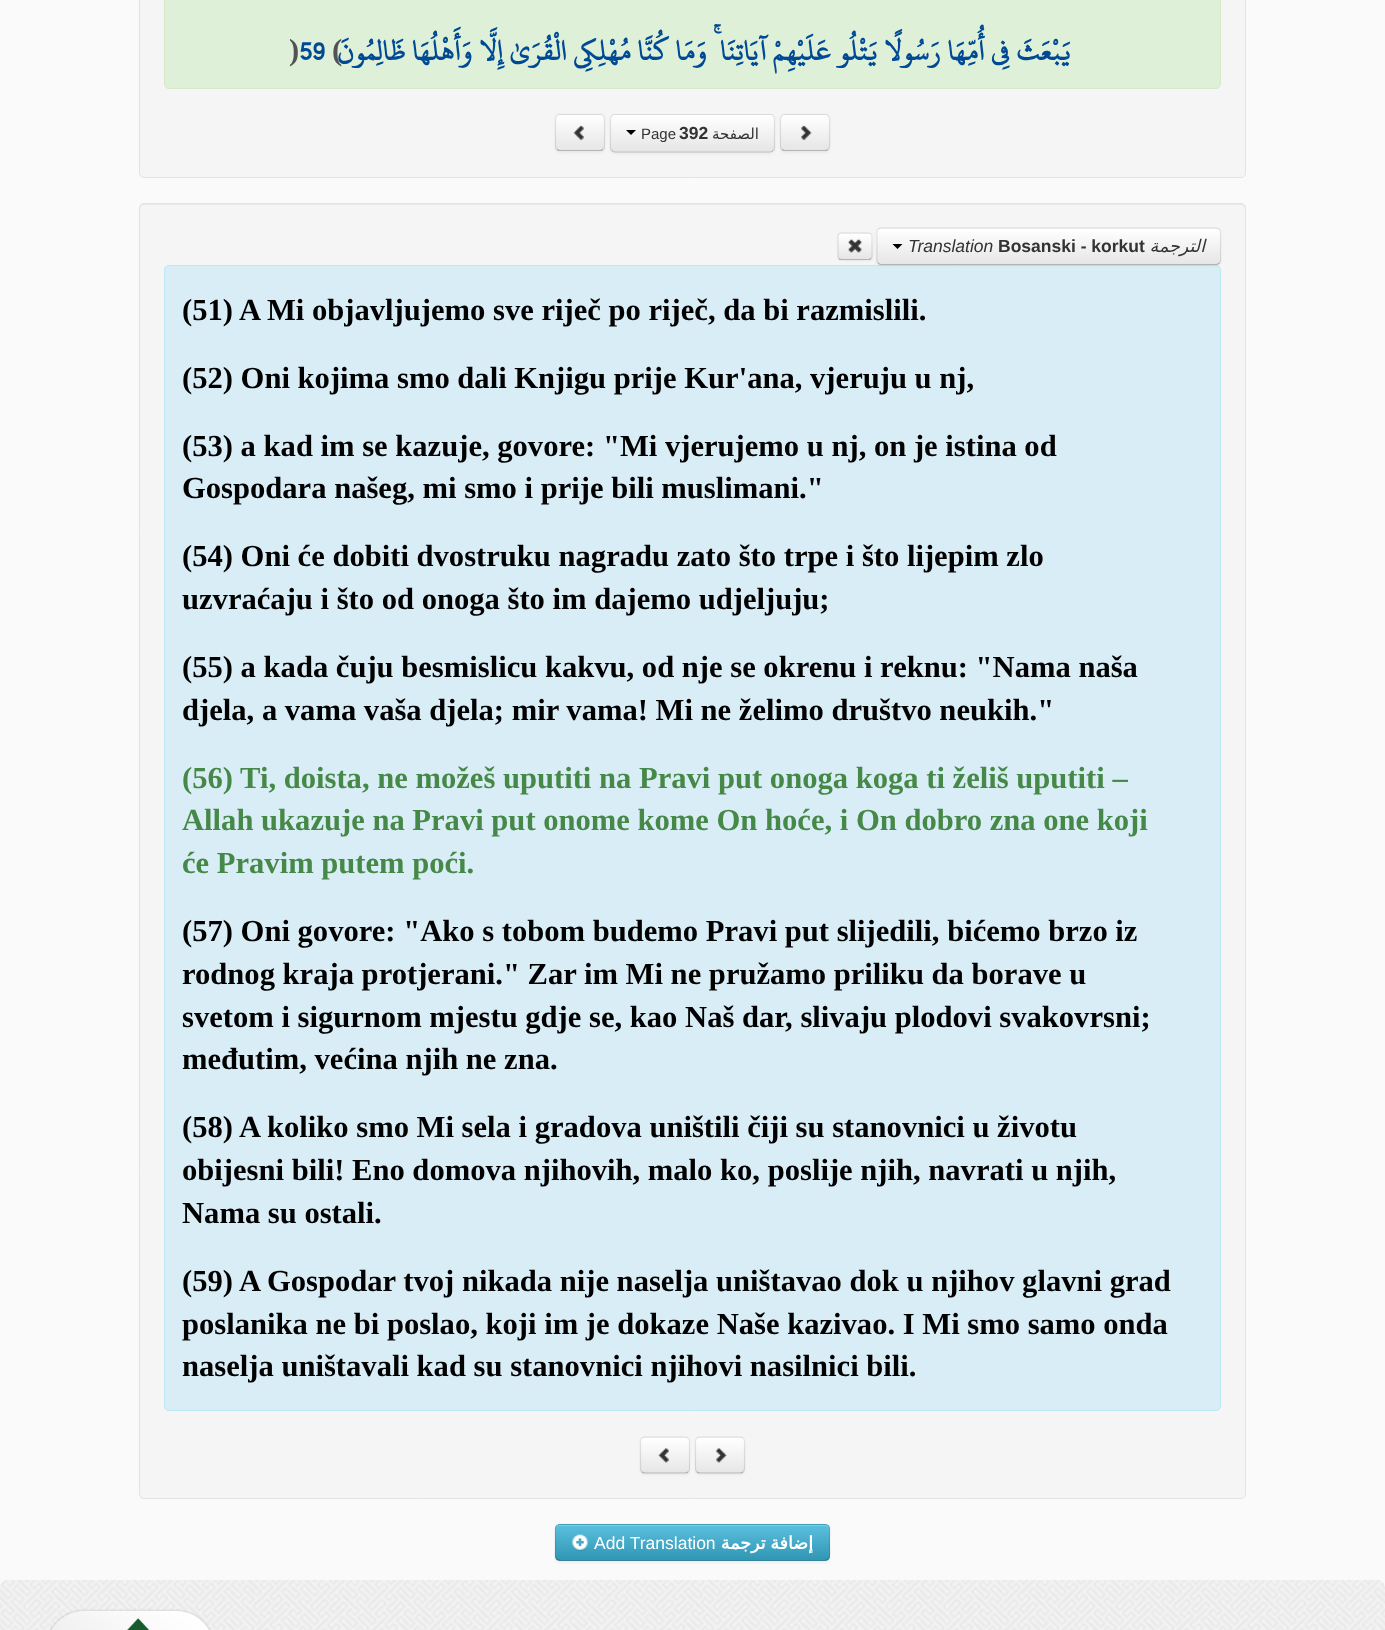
(async () => {
const canvas = document.querySelector("canvas")
canvas.width = 1385
canvas.height = 1630
const c = canvas.getContext("2d")
c.miterLimit = 4
c.fontKerning = "normal"
function T(s,x,y){c.fillText(s,x,y)}
function R(x,y,w,h){c.fillRect(x,y,w,h)}
function Q(x,y,w,h,r){c.beginPath();c.roundRect(x,y,w,h,r);c.fill()}
async function I(src,x,y,w,h){const img=new Image();img.src=src;await img.decode();c.drawImage(img,x,y,w,h)}
let gradient, path
c.fillStyle="#fafafa"
R(0,0,1385,1630)
c.fillStyle="#f5f5f5"
c.beginPath()
c.roundRect(139.5,-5.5,1106,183,4.5)
c.fill()
c.strokeStyle="#e3e3e3"
c.stroke()
c.fillStyle="#dff0d8"
c.beginPath()
c.roundRect(164.5,-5.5,1056,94,4.5)
c.fill()
c.strokeStyle="#d6e9c6"
c.stroke()
c.font="bold 30.6px Liberation Serif"
c.fillStyle="#535353"
T(")",289,60)
c.font="bold 30.6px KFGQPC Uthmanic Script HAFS"
c.fillStyle="#004a95"
T("59",299,60)
c.font="bold 30.6px Liberation Serif"
c.fillStyle="#535353"
T("(",332,60)
c.direction="rtl"
c.font="bold 30.6px KFGQPC Uthmanic Script HAFS"
c.fillStyle="#004a95"
T("يَبْعَثَ فِي أُمِّهَا رَسُولًا يَتْلُو عَلَيْهِمْ آيَاتِنَا ۚ وَمَا كُنَّا مُهْلِكِي الْقُرَىٰ إِلَّا وَأَهْلُهَا ظَالِمُونَ",1070,60)
c.fillStyle="#0000000d"
c.filter="blur(1px)"
c.beginPath()
c.roundRect(555,115,50,38,5)
c.fill()
c.filter="none"
c.save()
c.beginPath()
c.roundRect(555,114,50,37,5)
c.clip()
gradient = c.createLinearGradient(580,115,580,150)
gradient.addColorStop(0,"#fff")
gradient.addColorStop(1,"#e6e6e6")
c.fillStyle = gradient
R(555,115,50,35)
c.restore()
path = new Path2D("M603 149.5c-.5 .5-2 1-3 1h-40c-1 0-2.5-.5-3-1")
c.strokeStyle="#b3b3b3"
c.lineWidth=1.2
c.stroke(path)
path = new Path2D("M557 149.5c-1-1-1.5-2-1.5-3.5v-27c0-1.5 .5-2.5 1.5-3.5c.5-.5 2-1 3-1h40c1 0 2.5 .5 3 1c1 1 1.5 2 1.5 3.5v27c0 1.5-.5 2.5-1.5 3.5")
c.strokeStyle="#0000001a"
c.stroke(path)
await I("1.png",573,125,11,16)
c.filter="blur(1px)"
c.beginPath()
c.roundRect(610,115,165,39,5)
c.fill()
c.filter="none"
c.fillStyle="#f5f5f5"
Q(610,114,165,39,5)
c.save()
c.beginPath()
c.roundRect(610,114,165,39,5)
c.clip()
gradient = c.createLinearGradient(693,115,693,151)
gradient.addColorStop(0,"#fff")
gradient.addColorStop(1,"#e6e6e6")
c.fillStyle = gradient
R(610,115,165,36)
c.restore()
path = new Path2D("M773 150.5c-.5 1-2 1.5-3 1.5h-155c-1 0-2.5-.5-3-1.5")
c.strokeStyle="#b3b3b3"
c.stroke(path)
path = new Path2D("M612 150.5c-1-.5-1.5-2-1.5-3v-28.5c0-1.5 .5-2.5 1.5-3.5c.5-.5 2-1 3-1h155c1 0 2.5 .5 3 1c1 1 1.5 2 1.5 3.5v28.5c0 1-.5 2.5-1.5 3")
c.strokeStyle="#0000001a"
c.stroke(path)
c.fillStyle="#000"
path = new Path2D("M626 130h10l-5 5z")
c.fill(path)
c.direction="ltr"
c.font="15px Liberation Sans"
c.fillStyle="#333"
T("Page",641,139)
c.font="bold 17.5px Liberation Sans"
T("392",679,139)
c.direction="rtl"
c.font="15px DejaVu Sans"
T("الصفحة",759,139)
c.fillStyle="#0000000d"
c.filter="blur(1px)"
c.beginPath()
c.roundRect(780,115,50,38,5)
c.fill()
c.filter="none"
c.save()
c.beginPath()
c.roundRect(780,114,50,37,5)
c.clip()
gradient = c.createLinearGradient(805,115,805,150)
gradient.addColorStop(0,"#fff")
gradient.addColorStop(1,"#e6e6e6")
c.fillStyle = gradient
R(780,115,50,35)
c.restore()
path = new Path2D("M828 149.5c-.5 .5-2 1-3 1h-40c-1 0-2.5-.5-3-1")
c.strokeStyle="#b3b3b3"
c.stroke(path)
path = new Path2D("M782 149.5c-1-1-1.5-2-1.5-3.5v-27c0-1.5 .5-2.5 1.5-3.5c.5-.5 2-1 3-1h40c1 0 2.5 .5 3 1c1 1 1.5 2 1.5 3.5v27c0 1.5-.5 2.5-1.5 3.5")
c.strokeStyle="#0000001a"
c.stroke(path)
await I("2.png",801,125,11,16)
c.fillStyle="#f5f5f5"
Q(139,203,1107,1296,5)
c.fillStyle="#e9e9e9"
path = new Path2D("M144 205h1097c2 0 4 2 4 4c0-3-1-5-4-5h-1097c-3 0-4 2-4 5c0-2 2-4 4-4z")
c.fill(path)
c.beginPath()
c.roundRect(139.5,203.5,1106,1295,4.5)
c.strokeStyle="#e3e3e3"
c.lineWidth=1
c.stroke()
c.fillStyle="#0000000d"
c.filter="blur(1px)"
c.beginPath()
c.roundRect(838,234,35,27,4)
c.fill()
c.filter="none"
c.fillStyle="#f5f5f5"
Q(838,233,35,27,4)
c.save()
c.beginPath()
c.roundRect(838,233,35,27,4)
c.clip()
gradient = c.createLinearGradient(855,234,855,259)
gradient.addColorStop(0,"#fff")
gradient.addColorStop(1,"#e6e6e6")
c.fillStyle = gradient
R(838,234,35,25)
c.restore()
path = new Path2D("M871 258.5c-.5 .5-1.5 1-2 1h-28c-.5 0-1.5-.5-2-1")
c.strokeStyle="#b3b3b3"
c.lineWidth=1.2
c.stroke(path)
path = new Path2D("M839 258.5c-.5-.5-1-1.5-1-2.5v-20c0-.5 .5-1.5 1-2c.5-.5 1.5-1 2-1h28c.5 0 1.5 .5 2 1c.5 .5 1 1.5 1 2v20c0 1-.5 2-1 2.5")
c.strokeStyle="#0000001a"
c.stroke(path)
await I("3.png",848,239,14,14)
c.fillStyle="#d9edf7"
c.beginPath()
c.roundRect(164.5,265.5,1056,1145,4.5)
c.fill()
c.strokeStyle="#bce8f1"
c.lineWidth=1
c.stroke()
c.fillStyle="#0000000d"
c.filter="blur(1px)"
c.beginPath()
c.roundRect(876,229,345,37,5)
c.fill()
c.filter="none"
c.fillStyle="#f5f5f5"
Q(876,228,345,37,5)
c.save()
c.beginPath()
c.roundRect(876,228,345,37,5)
c.clip()
gradient = c.createLinearGradient(1049,229,1049,264)
gradient.addColorStop(0,"#fff")
gradient.addColorStop(1,"#e6e6e6")
c.fillStyle = gradient
R(876,229,345,35)
c.restore()
path = new Path2D("M1219.5 263c-1 1-2 1.5-3.5 1.5h-335c-1 0-2-.5-3-1.5")
c.strokeStyle="#b3b3b3"
c.lineWidth=1.2
c.stroke(path)
path = new Path2D("M878 263l-1-2v-30c1-2 2.5-3 4-3h335c2 0 3.5 1 4.5 3v30l-1 2")
c.strokeStyle="#0000001a"
c.stroke(path)
c.fillStyle="#000"
path = new Path2D("M892.5 244h10l-5 5z")
c.fill(path)
c.direction="ltr"
c.font="italic 17.5px Liberation Sans"
c.fillStyle="#333"
T("Translation",908,252)
c.font="bold 17.5px Liberation Sans"
T("Bosanski - korkut",998,252)
c.direction="rtl"
c.font="italic 17.5px DejaVu Sans"
T("الترجمة",1205,252)
c.direction="ltr"
c.font="bold 30.6px Liberation Serif"
c.fillStyle="#000"
T("(51) A Mi objavljujemo sve riječ po riječ, da bi razmislili.",182,320)
T("(52) Oni kojima smo dali Knjigu prije Kur'ana, vjeruju u nj,",182,388)
T("(53) a kad im se kazuje, govore: \"Mi vjerujemo u nj, on je istina od",182,456)
T("Gospodara našeg, mi smo i prije bili muslimani.\"",182,498)
T("(54) Oni će dobiti dvostruku nagradu zato što trpe i što lijepim zlo",182,566)
T("uzvraćaju i što od onoga što im dajemo udjeljuju;",182,609)
T("(55) a kada čuju besmislicu kakvu, od nje se okrenu i reknu: \"Nama naša",182,677)
T("djela, a vama vaša djela; mir vama! Mi ne želimo društvo neukih.\"",182,720)
c.fillStyle="#468847"
T("(56) Ti, doista, ne možeš uputiti na Pravi put onoga koga ti želiš uputiti –",182,788)
T("Allah ukazuje na Pravi put onome kome On hoće, i On dobro zna one koji",182,830)
T("će Pravim putem poći.",182,873)
c.fillStyle="#000"
T("(57) Oni govore: \"Ako s tobom budemo Pravi put slijedili, bićemo brzo iz",182,941)
T("rodnog kraja protjerani.\" Zar im Mi ne pružamo priliku da borave u",182,984)
T("svetom i sigurnom mjestu gdje se, kao Naš dar, slivaju plodovi svakovrsni;",182,1027)
T("međutim, većina njih ne zna.",182,1069)
T("(58) A koliko smo Mi sela i gradova uništili čiji su stanovnici u životu",182,1137)
T("obijesni bili! Eno domova njihovih, malo ko, poslije njih, navrati u njih,",182,1180)
T("Nama su ostali.",182,1223)
T("(59) A Gospodar tvoj nikada nije naselja uništavao dok u njihov glavni grad",182,1291)
T("poslanika ne bi poslao, koji im je dokaze Naše kazivao. I Mi smo samo onda",182,1334)
T("naselja uništavali kad su stanovnici njihovi nasilnici bili.",182,1376)
c.fillStyle="#0000000d"
c.filter="blur(1px)"
c.beginPath()
c.roundRect(640,1438,50,37,5)
c.fill()
c.filter="none"
c.fillStyle="#f5f5f5"
Q(640,1436,50,38,5)
c.save()
c.beginPath()
c.roundRect(640,1436,50,38,5)
c.clip()
gradient = c.createLinearGradient(665,1438,665,1473)
gradient.addColorStop(0,"#fff")
gradient.addColorStop(1,"#e6e6e6")
c.fillStyle = gradient
R(640,1438,50,35)
c.restore()
path = new Path2D("M688 1472c-.5 .5-2 1-3 1h-40c-1 0-2.5-.5-3-1")
c.strokeStyle="#b3b3b3"
c.stroke(path)
path = new Path2D("M642 1472c-1-1-1.5-2-1.5-3v-28c0-1 .5-2 1.5-3c.5-.5 2-1 3-1h40c1 0 2.5 .5 3 1c1 1 1.5 2 1.5 3v28c0 1-.5 2-1.5 3")
c.strokeStyle="#0000001a"
c.stroke(path)
await I("4.png",658,1448,11,15)
c.fillStyle="#0000000d"
c.filter="blur(1px)"
c.beginPath()
c.roundRect(695,1438,50,37,5)
c.fill()
c.filter="none"
c.fillStyle="#f5f5f5"
Q(695,1436,50,38,5)
c.save()
c.beginPath()
c.roundRect(695,1436,50,38,5)
c.clip()
gradient = c.createLinearGradient(720,1438,720,1473)
gradient.addColorStop(0,"#fff")
gradient.addColorStop(1,"#e6e6e6")
c.fillStyle = gradient
R(695,1438,50,35)
c.restore()
path = new Path2D("M743 1472c-.5 .5-2 1-3 1h-40c-1 0-2.5-.5-3-1")
c.strokeStyle="#b3b3b3"
c.stroke(path)
path = new Path2D("M697 1472c-1-1-1.5-2-1.5-3v-28c0-1 .5-2 1.5-3c.5-.5 2-1 3-1h40c1 0 2.5 .5 3 1c1 1 1.5 2 1.5 3v28c0 1-.5 2-1.5 3")
c.strokeStyle="#0000001a"
c.stroke(path)
await I("5.png",716,1448,11,15)
c.fillStyle="#0000000d"
c.filter="blur(1px)"
c.beginPath()
c.roundRect(555,1525,275,38,5)
c.fill()
c.filter="none"
c.fillStyle="#49afcd"
Q(555,1524,275,37,5)
c.save()
c.beginPath()
c.roundRect(555,1524,275,37,5)
c.clip()
gradient = c.createLinearGradient(693,1525,693,1560)
gradient.addColorStop(0,"#5bc0de")
gradient.addColorStop(1,"#2f96b4")
c.fillStyle = gradient
R(555,1525,275,35)
c.restore()
c.fillStyle="#7bcce4"
path = new Path2D("M560 1526h265c2 0 4 2 4 4c0-3-1-5-4-5h-265c-3 0-4 2-4 5c0-2 2-4 4-4z")
c.fill(path)
path = new Path2D("M828 1559.5c-.5 .5-2 1-3 1h-265c-1 0-2.5-.5-3-1")
c.strokeStyle="#00000040"
c.stroke(path)
path = new Path2D("M557 1559.5c-3-3-1.5-9.5-1.5-12.5v-9c0-3.5-2-13.5 4.5-13.5h265c6.5 0 4.5 10 4.5 13.5v9c0 3 1.5 9.5-1.5 12.5")
c.strokeStyle="#0000001a"
c.stroke(path)
await I("6.png",572,1534,16,17)
c.font="17.5px Liberation Sans"
c.fillStyle="#fff"
T("Add Translation",594,1549)
c.wordSpacing="-1px"
c.direction="rtl"
c.font="bold 17.5px DejaVu Sans"
T("إضافة ترجمة",813,1549)
await I("7.png",0,1580,1385,50)
await I("8.png",50,1609,161,21)
})()
